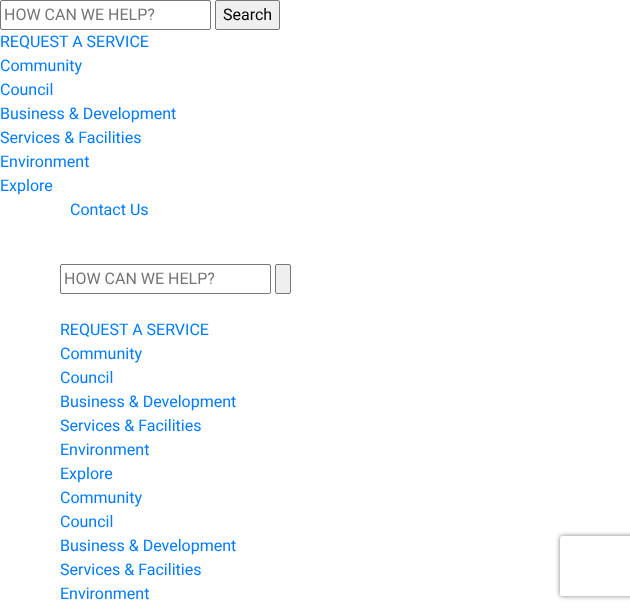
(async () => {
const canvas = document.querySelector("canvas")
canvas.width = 630
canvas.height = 610
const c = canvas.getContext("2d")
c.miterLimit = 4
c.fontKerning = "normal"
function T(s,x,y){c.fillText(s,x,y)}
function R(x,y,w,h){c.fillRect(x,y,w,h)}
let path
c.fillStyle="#fff"
R(0,0,630,610)
c.beginPath()
c.roundRect(.5,.5,210,29,1.5)
c.strokeStyle="#767676"
c.stroke()
c.font="16px Roboto"
c.fillStyle="#757575"
T("HOW CAN WE HELP?",4,20)
c.fillStyle="#efefef"
c.beginPath()
c.roundRect(215.5,.5,64,29,1.5)
c.fill()
c.stroke()
c.fillStyle="#000"
T("Search",223,20)
c.fillStyle="#007bff"
T("REQUEST A SERVICE",0,47)
T("Community",0,71)
T("Council",0,95)
T("Business & Development",0,119)
T("Services & Facilities",0,143)
T("Environment",0,167)
T("Explore",0,191)
T("Contact Us",70,215)
c.beginPath()
c.roundRect(60.5,264.5,210,29,1.5)
c.stroke()
c.fillStyle="#757575"
T("HOW CAN WE HELP?",64,284)
c.fillStyle="#efefef"
c.beginPath()
c.roundRect(275.5,264.5,15,29,1.5)
c.fill()
c.stroke()
c.fillStyle="#007bff"
T("REQUEST A SERVICE",60,335)
T("Community",60,359)
T("Council",60,383)
T("Business & Development",60,407)
T("Services & Facilities",60,431)
T("Environment",60,455)
T("Explore",60,479)
T("Community",60,503)
T("Council",60,527)
T("Business & Development",60,551)
T("Services & Facilities",60,575)
T("Environment",60,599)
c.save()
path = new Path2D("M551 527h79v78h-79zm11 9h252c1 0 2 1 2 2v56c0 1-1 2-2 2h-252c-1 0-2-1-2-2v-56c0-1 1-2 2-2z")
c.clip(path,"evenodd")
c.fillStyle="#808080"
c.filter="blur(2.5px)"
c.beginPath()
c.roundRect(560,536,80,60,2)
c.fill()
c.filter="none"
c.restore()
})()
